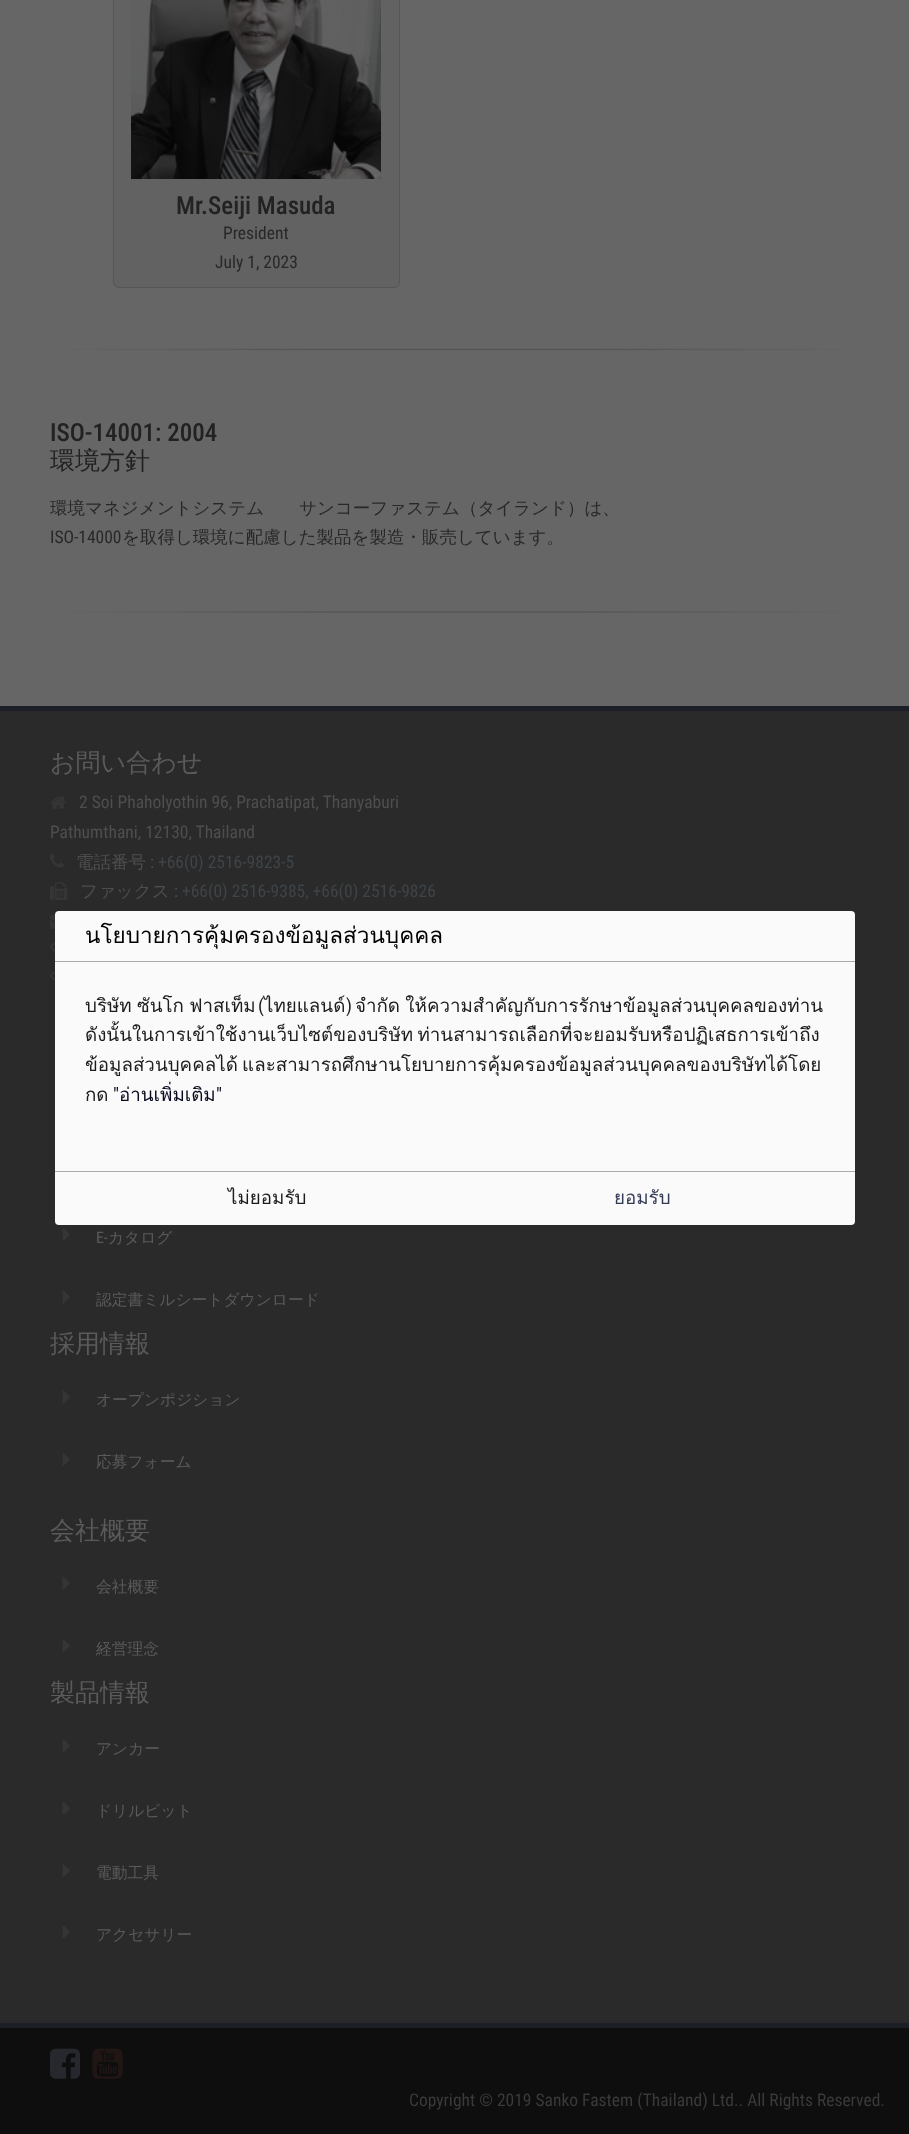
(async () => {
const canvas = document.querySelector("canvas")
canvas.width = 909
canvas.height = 2134
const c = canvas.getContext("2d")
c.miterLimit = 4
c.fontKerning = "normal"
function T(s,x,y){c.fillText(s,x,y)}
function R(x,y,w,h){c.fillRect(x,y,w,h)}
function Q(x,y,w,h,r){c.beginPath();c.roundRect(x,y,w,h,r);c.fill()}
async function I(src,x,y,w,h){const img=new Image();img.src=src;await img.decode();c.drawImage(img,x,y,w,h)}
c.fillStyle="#0e0e0e"
R(0,0,909,2134)
c.fillStyle="#666"
R(0,0,909,706)
c.fillStyle="#1c1f25"
R(0,706,909,5)
c.fillStyle="#626262"
c.beginPath()
c.roundRect(113.5,-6.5,286,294,5.5)
c.fill()
c.strokeStyle="#565656"
c.stroke()
await I("1.png",131,0,250,179)
c.font="500 25px Roboto Condensed"
c.fillStyle="#222"
T("Mr.Seiji Masuda",176,214)
c.font="17.5px Roboto Condensed"
c.fillStyle="#282828"
T("President",223,239)
T("July 1, 2023",215,268)
await I("2.png",69,348,773,3)
c.font="500 25px Roboto Condensed"
c.fillStyle="#222"
T("ISO-14001: 2004",50,441)
c.font="500 25px WenQuanYi Zen Hei"
T("環境方針",50,469)
c.font="500 17.5px WenQuanYi Zen Hei"
c.fillStyle="#282828"
T("環境マネジメントシステム　　サンコーファステム（タイランド）は、",50,514)
c.font="17.5px Roboto Condensed"
T("ISO-14000",50,543)
c.font="500 17.5px WenQuanYi Zen Hei"
T("を取得し環境に配慮した製品を製造・販売しています。",122,543)
await I("3.png",71,611,769,2)
c.fillStyle="#2a2a2a"
R(0,711,909,1312)
c.fillStyle="#1c1f25"
R(0,2023,909,5)
c.font="500 25px WenQuanYi Zen Hei"
c.fillStyle="#5a5a5a"
T("お問い合わせ",50,771)
await I("4.png",50,796,16,13)
c.font="17.5px Roboto Condensed"
c.fillStyle="#4e4e4e"
T("2 Soi Phaholyothin 96, Prachatipat, Thanyaburi",79,808)
T("Pathumthani, 12130, Thailand",50,838)
await I("5.png",50,853,14,15)
c.font="500 17.5px WenQuanYi Zen Hei"
T("電話番号",76,868)
c.font="17.5px Roboto Condensed"
T(":",150,868)
c.fillStyle="#3e4448"
T("+66(0) 2516-9823-5",158,868)
await I("6.png",50,882,18,18)
c.font="500 17.5px WenQuanYi Zen Hei"
c.fillStyle="#4e4e4e"
T("ファックス",80,897)
c.font="17.5px Roboto Condensed"
T(":",174,897)
c.fillStyle="#3e4448"
T("+66(0) 2516-9385, +66(0) 2516-9826",182,897)
await I("7.png",50,915,5,14)
await I("8.png",50,942,5,10)
await I("9.png",50,971,5,10)
await I("10.png",62,1228,8,13)
c.font="15.75px Roboto Condensed"
c.fillStyle="#5a5a5a"
T("E-",96,1243)
c.font="500 15.75px WenQuanYi Zen Hei"
T("カタログ",108,1243)
await I("11.png",62,1290,8,14)
T("認定書ミルシートダウンロード",96,1305)
c.font="500 25px WenQuanYi Zen Hei"
T("採用情報",50,1352)
await I("11.png",62,1390,8,14)
c.font="500 15.75px WenQuanYi Zen Hei"
T("オープンポジション",96,1405)
await I("10.png",62,1453,8,13)
T("応募フォーム",96,1467)
c.font="500 25px WenQuanYi Zen Hei"
T("会社概要",50,1539)
await I("12.png",62,1577,8,13)
c.font="500 15.75px WenQuanYi Zen Hei"
T("会社概要",96,1592)
await I("13.png",62,1639,8,13)
T("経営理念",96,1654)
c.font="500 25px WenQuanYi Zen Hei"
T("製品情報",50,1701)
await I("13.png",62,1739,8,13)
c.font="500 15.75px WenQuanYi Zen Hei"
T("アンカー",96,1754)
await I("12.png",62,1802,8,13)
T("ドリルビット",96,1816)
await I("13.png",62,1864,8,13)
T("電動工具",96,1878)
await I("11.png",62,1925,8,14)
T("アクセサリー",96,1940)
await I("14.png",50,2048,30,31)
await I("15.png",92,2048,31,31)
c.font="17.5px Roboto Condensed"
c.fillStyle="#3a3a3a"
T("Copyright © 2019 Sanko Fastem (Thailand) Ltd.. All Rights Reserved.",409,2106)
c.fillStyle="#fafafa"
Q(55,911,800,314,4)
c.fillStyle="#aaa"
R(55,961,800,1)
c.font="22.5px Loma"
c.fillStyle="#000"
T("นโยบายการคุ้มครองข้อมูลส่วนบุคคล",85,943)
c.fillStyle="#aaa"
R(55,1171,800,1)
c.wordSpacing="-1px"
c.font="18.75px Loma"
c.fillStyle="#1c1c1c"
T("บริษัท ซันโก ฟาสเท็ม",85,1012)
c.wordSpacing="0px"
c.font="18.75px Roboto Condensed"
T("(",258,1012)
c.font="18.75px Loma"
T("ไทยแลนด์",264,1012)
c.font="18.75px Roboto Condensed"
T(")",346,1012)
c.wordSpacing="-1px"
c.font="18.75px Loma"
T("จำกัด ให้ความสำคัญกับการรักษาข้อมูลส่วนบุคคลของท่าน",355,1012)
c.wordSpacing="-2px"
T("ดังนั้นในการเข้าใช้งานเว็บไซต์ของบริษัท ท่านสามารถเลือกที่จะยอมรับหรือปฏิเสธการเข้าถึง",85,1041)
T("ข้อมูลส่วนบุคคลได้ และสามารถศึกษานโยบายการคุ้มครองข้อมูลส่วนบุคคลของบริษัทได้โดย",85,1071)
c.wordSpacing="0px"
c.font="18.75px Roboto Condensed"
c.fillStyle="#090920"
T("\"",113,1101)
c.font="18.75px Loma"
T("อ่านเพิ่มเติม",119,1101)
c.font="18.75px Roboto Condensed"
T("\"",216,1101)
c.font="18.75px Loma"
c.fillStyle="#1c1c1c"
T("กด",85,1101)
T("ไม่ยอมรับ",228,1204)
c.fillStyle="#333a55"
T("ยอมรับ",614,1204)
})()
